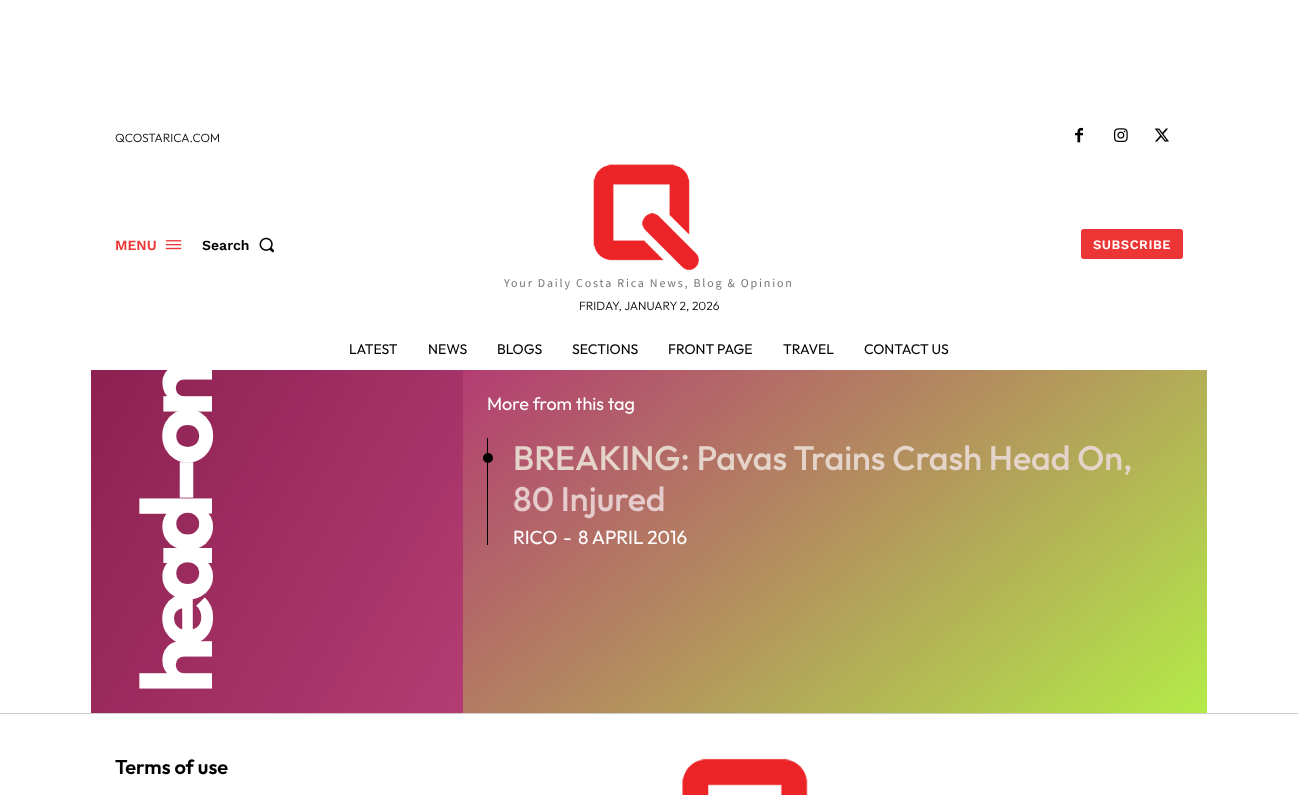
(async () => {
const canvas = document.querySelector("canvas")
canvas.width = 1298
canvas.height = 795
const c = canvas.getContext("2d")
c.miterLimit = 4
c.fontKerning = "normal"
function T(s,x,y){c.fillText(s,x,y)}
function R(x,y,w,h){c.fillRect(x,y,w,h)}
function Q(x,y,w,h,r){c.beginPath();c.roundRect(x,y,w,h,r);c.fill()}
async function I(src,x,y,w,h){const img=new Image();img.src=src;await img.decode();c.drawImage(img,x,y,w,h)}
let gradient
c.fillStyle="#fff"
R(0,0,1298,795)
c.font="300 12px Outfit"
c.fillStyle="#000"
T("QCOSTARICA.COM",115,142)
await I("1.png",1075,127,8,16)
await I("2.png",1114,128,14,14)
await I("3.png",1154,128,15,14)
c.font="600 14px Work Sans"
c.fillStyle="#ec3535"
T("MENU",115,250)
await I("4.png",165,240,17,10)
c.fillStyle="#000"
T("Search",202,250)
await I("5.png",259,237,16,16)
c.fillStyle="#ec3535"
Q(1081,229,102,30,3)
c.letterSpacing="0.5px"
c.font="600 13px Work Sans"
c.fillStyle="#fff"
T("SUBSCRIBE",1093,249)
await I("6.png",593,164,106,106)
c.letterSpacing="1.8px"
c.font="12px Source Sans Pro"
c.fillStyle="#767676"
T("Your Daily Costa Rica News, Blog & Opinion",504,287)
c.letterSpacing="0px"
c.font="300 12px Outfit"
c.fillStyle="#000"
T("FRIDAY, JANUARY 2, 2026",579,310)
c.font="14px Outfit"
T("LATEST",349,354)
T("NEWS",428,354)
T("BLOGS",497,354)
T("SECTIONS",572,354)
T("FRONT PAGE",668,354)
T("TRAVEL",783,354)
T("CONTACT US",864,354)
gradient = c.createLinearGradient(491,665,63,418)
gradient.addColorStop(0,"#b33d72")
gradient.addColorStop(1,"#8c2051")
c.fillStyle = gradient
R(91,370,372,343)
c.letterSpacing="-10px"
c.font="bold 100px Outfit"
c.fillStyle="#fff"
c.save()
c.translate(212,694)
c.rotate(-90 * Math.PI / 180)
c.fillText("head-on",0,0)
c.restore()
gradient = c.createLinearGradient(1073,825,597,258)
gradient.addColorStop(0,"#b3eb48")
gradient.addColorStop(1,"#b33d72")
c.fillStyle = gradient
R(463,370,744,343)
c.letterSpacing="0px"
c.font="18px Outfit"
c.fillStyle="#fff"
T("More from this tag",487,410)
c.fillStyle="#000"
R(487,438,1,107)
c.beginPath()
c.arc(488,458,5,0,7)
c.fill()
c.font="500 34px Outfit"
c.fillStyle="#e5d4c9"
T("BREAKING: Pavas Trains Crash Head On,",513,470)
c.fillStyle="#e5cbcc"
T("80 Injured",513,511)
c.font="19px Outfit"
c.fillStyle="#fff"
T("RICO",513,544)
T("-",563,544)
T("8 APRIL 2016",578,544)
c.fillStyle="#ccc"
R(0,713,1298,1)
c.font="600 20px Outfit"
c.fillStyle="#000"
T("Terms of use",115,774)
await I("7.png",682,758,126,37)
})()
